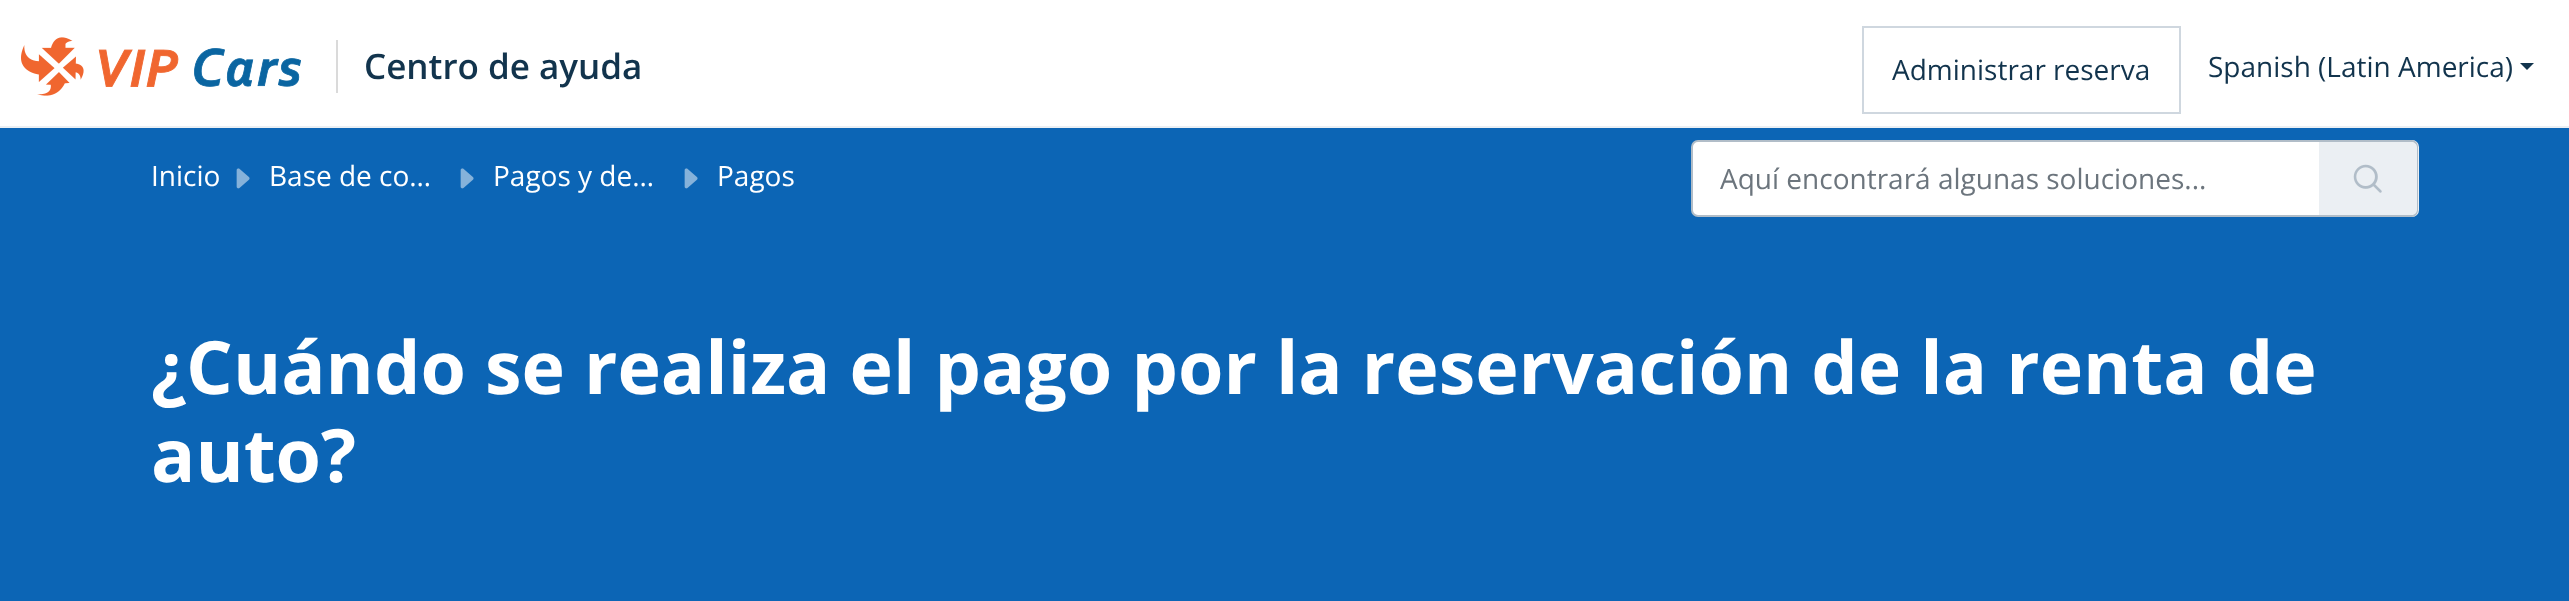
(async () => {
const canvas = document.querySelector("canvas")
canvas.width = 2569
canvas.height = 601
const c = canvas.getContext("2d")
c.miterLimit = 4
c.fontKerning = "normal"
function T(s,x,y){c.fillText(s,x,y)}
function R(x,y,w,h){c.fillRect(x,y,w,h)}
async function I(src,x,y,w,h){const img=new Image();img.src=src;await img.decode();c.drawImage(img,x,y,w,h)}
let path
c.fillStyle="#0c65b5"
R(0,0,2569,601)
c.fillStyle="#fff"
R(0,0,2569,126)
c.fillStyle="#ebeff3"
R(0,126,2569,2)
await I("1.png",21,37,280,59)
c.fillStyle="#dadada"
R(336,40,2,53)
c.font="600 35px Open Sans"
c.fillStyle="#12344d"
T("Centro de ayuda",364,79)
c.strokeStyle="#cfd7df"
c.lineWidth=2
c.strokeRect(1863,27,317,86)
c.font="28px Open Sans"
T("Administrar reserva",1892,80)
T("Spanish (Latin America)",2208,77)
path = new Path2D("M2520 63h14l-7 7z")
c.fill(path)
c.fillStyle="#fff"
T("Inicio",151,186)
await I("2.png",236,168,14,21)
T("Base de co…",269,186)
await I("2.png",460,168,14,21)
T("Pagos y de…",493,186)
await I("2.png",684,168,14,21)
T("Pagos",717,186)
c.beginPath()
c.roundRect(1692,141,628,75,[6,0,0,6])
c.fill()
c.strokeStyle="#b1bdc8"
c.stroke()
c.fillStyle="#6c757d"
T("Aquí encontrará algunas soluciones...",1720,189)
c.fillStyle="#ebeff3"
c.beginPath()
c.roundRect(2319,140,100,77,[0,7,7,0])
c.fill()
c.fillStyle="#b1bdc8"
path = new Path2D("M2319 140h93c3 0 6 3 6 7v63c0 4-3 7-6 7h-93zm0 2h93c2 0 5 2 5 5v63c0 3-3 5-5 5h-93z")
c.fill(path,"evenodd")
await I("3.png",2353,164,29,29)
c.font="bold 73.5px Open Sans"
c.fillStyle="#fff"
T("¿Cuándo se realiza el pago por la reservación de la renta de",151,394)
T("auto?",151,482)
})()
